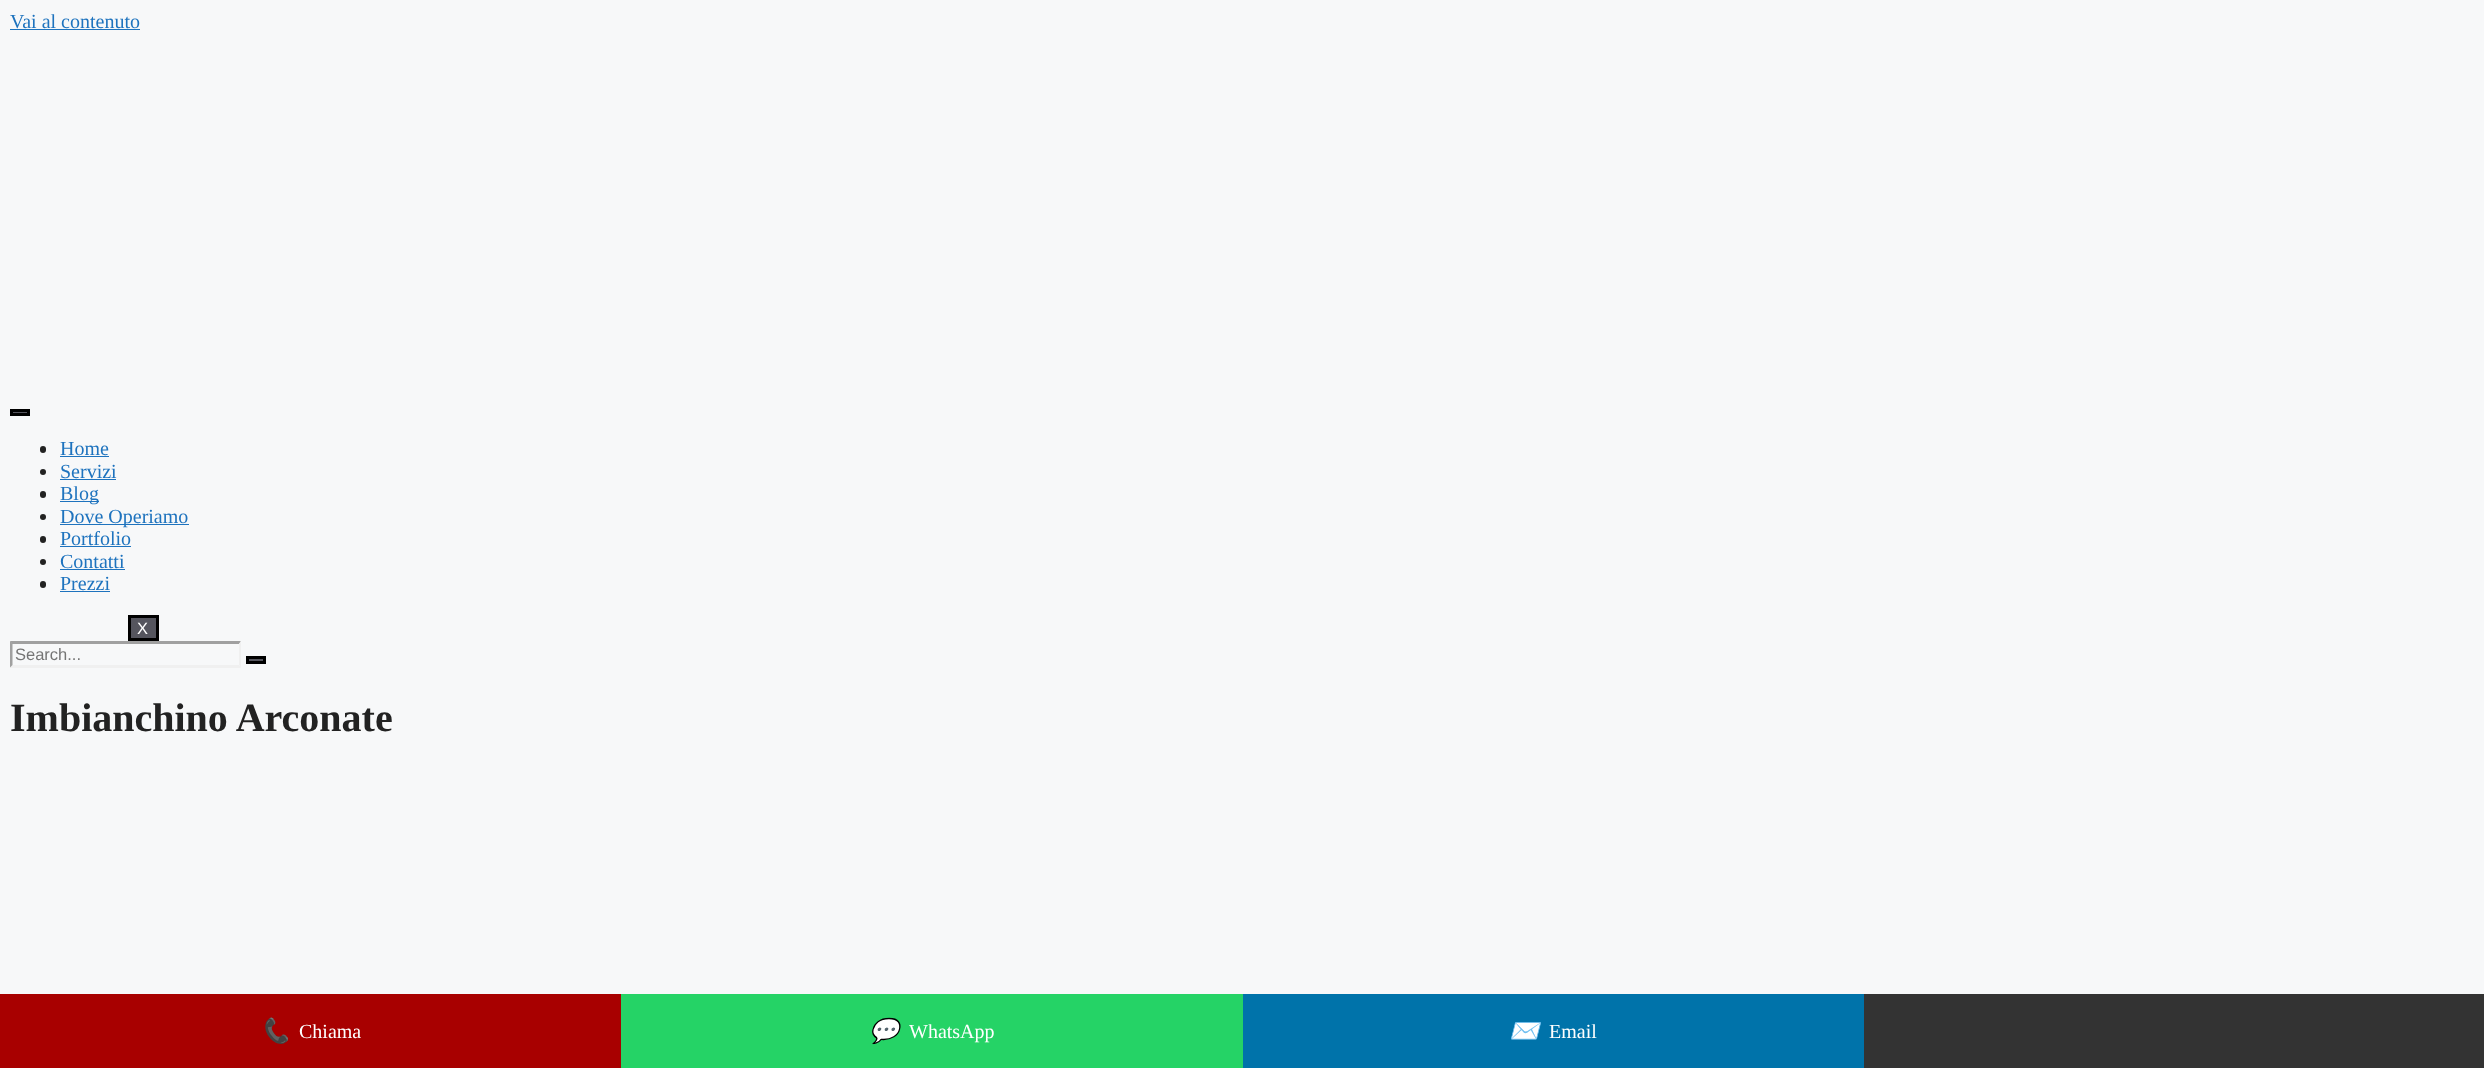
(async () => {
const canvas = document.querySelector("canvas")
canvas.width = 2484
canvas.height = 1068
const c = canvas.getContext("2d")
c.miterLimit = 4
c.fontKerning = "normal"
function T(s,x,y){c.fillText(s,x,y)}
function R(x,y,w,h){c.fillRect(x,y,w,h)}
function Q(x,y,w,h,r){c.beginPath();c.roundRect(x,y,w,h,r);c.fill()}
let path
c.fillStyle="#f7f8f9"
R(0,0,2484,1068)
c.font="20px Liberation Serif"
c.fillStyle="#1e73be"
T("Vai al contenuto",10,28)
R(10,29,130,1)
c.fillStyle="#55555e"
c.beginPath()
c.rect(11.5,410.5,17,4)
c.fill()
c.strokeStyle="#000"
c.lineWidth=3
c.stroke()
c.fillStyle="#222"
Q(40,446,6,7,3)
c.fillStyle="#1e73be"
T("Home",60,455)
R(60,456,49,1)
c.fillStyle="#222"
c.beginPath()
c.arc(43,472,3,0,7)
c.fill()
c.fillStyle="#1e73be"
T("Servizi",60,478)
R(60,479,56,1)
c.fillStyle="#222"
Q(40,491,6,7,3)
c.fillStyle="#1e73be"
R(60,501,39,1)
T("Blog",60,500)
c.fillStyle="#222"
c.beginPath()
c.arc(43,517,3,0,7)
c.fill()
c.fillStyle="#1e73be"
R(60,524,129,1)
T("Dove Operiamo",60,523)
c.fillStyle="#222"
Q(40,536,6,7,3)
c.fillStyle="#1e73be"
T("Portfolio",60,545)
R(60,546,71,1)
c.fillStyle="#222"
c.beginPath()
c.arc(43,562,3,0,7)
c.fill()
c.fillStyle="#1e73be"
T("Contatti",60,568)
R(60,569,65,1)
c.fillStyle="#222"
Q(40,581,6,7,3)
c.fillStyle="#1e73be"
T("Prezzi",60,590)
R(60,591,50,1)
c.fillStyle="#55555e"
c.beginPath()
c.rect(129.5,616.5,28,23)
c.fill()
c.stroke()
c.font="16.5px Liberation Sans"
c.fillStyle="#fff"
T("X",137,634)
c.fillStyle="#a0a0a0"
path = new Path2D("M10 641h231l-2 3h-227z")
c.fill(path)
c.fillStyle="#f0f0f0"
path = new Path2D("M241 641v26.5l-2-2.5v-21z")
c.fill(path)
path = new Path2D("M241 668h-231l2-3h227z")
c.fill(path)
c.fillStyle="#a0a0a0"
path = new Path2D("M10 667.5v-26.5l2.5 3v21z")
c.fill(path)
c.fillStyle="#757575"
T("Search...",15,660)
c.fillStyle="#55555e"
c.beginPath()
c.rect(247.5,657.5,17,5)
c.fill()
c.stroke()
c.font="bold 40px Liberation Serif"
c.fillStyle="#222"
T("Imbianchino Arconate",10,731)
c.fillStyle="#333"
R(1864,994,620,74)
c.fillStyle="#a80000"
R(0,994,621,74)
c.font="italic 24px Noto Color Emoji"
c.fillStyle="#fff"
T("📞",260,1039)
c.font="20px Liberation Serif"
T("Chiama",299,1038)
c.fillStyle="#25d366"
R(621,994,622,74)
c.font="italic 24px Noto Color Emoji"
c.fillStyle="#fff"
T("💬",869,1039)
c.font="20px Liberation Serif"
T("WhatsApp",909,1038)
c.fillStyle="#0073aa"
R(1243,994,621,74)
c.font="italic 24px Noto Color Emoji"
c.fillStyle="#fff"
T("✉️",1509,1039)
c.font="20px Liberation Serif"
T("Email",1549,1038)
})()
